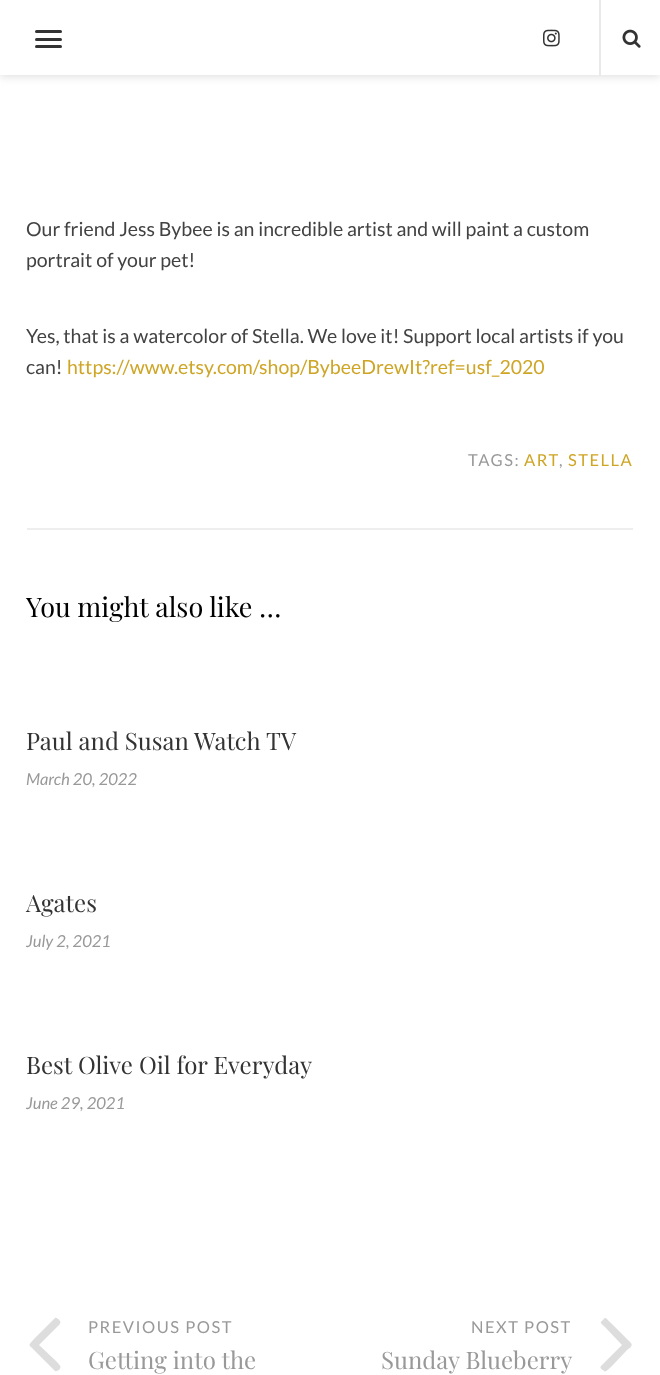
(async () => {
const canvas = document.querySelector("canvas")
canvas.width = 660
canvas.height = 1375
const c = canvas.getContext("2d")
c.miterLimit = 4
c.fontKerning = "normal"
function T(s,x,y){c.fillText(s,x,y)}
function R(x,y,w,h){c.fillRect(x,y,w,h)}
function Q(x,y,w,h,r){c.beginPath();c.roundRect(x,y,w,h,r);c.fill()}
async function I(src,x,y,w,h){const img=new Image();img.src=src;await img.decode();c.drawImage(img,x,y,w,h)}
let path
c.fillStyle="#fff"
R(0,0,660,1375)
c.fillStyle="#bebebe75"
c.filter="blur(4px)"
c.beginPath()
c.rect(0,2,660,75)
c.fill()
c.filter="none"
c.fillStyle="#fff"
R(0,0,660,75)
c.fillStyle="#333"
Q(35,30,27,3,1.5)
Q(35,38,27,3,1.5)
Q(35,45,27,3,1.5)
await I("1.png",543,29,17,18)
c.fillStyle="#e9e9e9"
R(599,0,2,75)
await I("2.png",622,29,19,19)
c.fillStyle="#eee"
R(27,528,606,2)
c.font="19.5px Lato"
c.fillStyle="#424242"
T("Our friend Jess Bybee is an incredible artist and will paint a custom",26,236)
T("portrait of your pet!",26,267)
T("Yes, that is a watercolor of Stella. We love it! Support local artists if you",26,343)
T("can!",26,374)
c.fillStyle="#cea525"
T("https://www.etsy.com/shop/BybeeDrewIt?ref=usf_2020",67,374)
c.letterSpacing="1.5px"
c.font="16.5px Lato"
c.fillStyle="#999"
T("TAGS:",468,466)
c.fillStyle="#cea525"
T("ART",524,466)
c.fillStyle="#999"
T(",",559,466)
c.fillStyle="#cea525"
T("STELLA",568,466)
c.letterSpacing="0px"
c.font="27px Playfair Display"
c.fillStyle="#000"
T("You might also like …",26,617)
c.font="24px Playfair Display"
c.fillStyle="#333"
T("Paul and Susan Watch TV",26,750)
c.font="italic 16.5px Lato"
c.fillStyle="#999"
T("March 20, 2022",26,785)
c.font="24px Playfair Display"
c.fillStyle="#333"
T("Agates",26,912)
c.font="italic 16.5px Lato"
c.fillStyle="#999"
T("July 2, 2021",26,947)
c.font="24px Playfair Display"
c.fillStyle="#333"
T("Best Olive Oil for Everyday",26,1074)
c.font="italic 16.5px Lato"
c.fillStyle="#999"
T("June 29, 2021",26,1109)
c.fillStyle="#ddd"
path = new Path2D("M60 1321c2 2-3 6-3 6l-18 18l18 17c3 4 5 4 2 8c-1 0-3 2-4 1l-21-21c-6-6-6-4 0-11l21-21c2-1 4 2 5 3z")
c.fill(path)
c.letterSpacing="1.5px"
c.font="16.5px Lato"
c.fillStyle="#999"
T("PREVIOUS POST",88,1333)
c.letterSpacing="0px"
c.font="24px Playfair Display"
T("Getting into the",88,1369)
c.letterSpacing="1.5px"
c.font="16.5px Lato"
T("NEXT POST",471,1333)
c.letterSpacing="0px"
c.font="24px Playfair Display"
T("Sunday Blueberry",381,1369)
c.fillStyle="#ddd"
path = new Path2D("M631 1343c3 3-4 7-4 7l-16 17c-1 0-5 6-7 4c-1-1-5-3-3-5l21-21l-17-18c-4-4-6-4-2-7c3-4 3-1 8 3z")
c.fill(path)
})()
